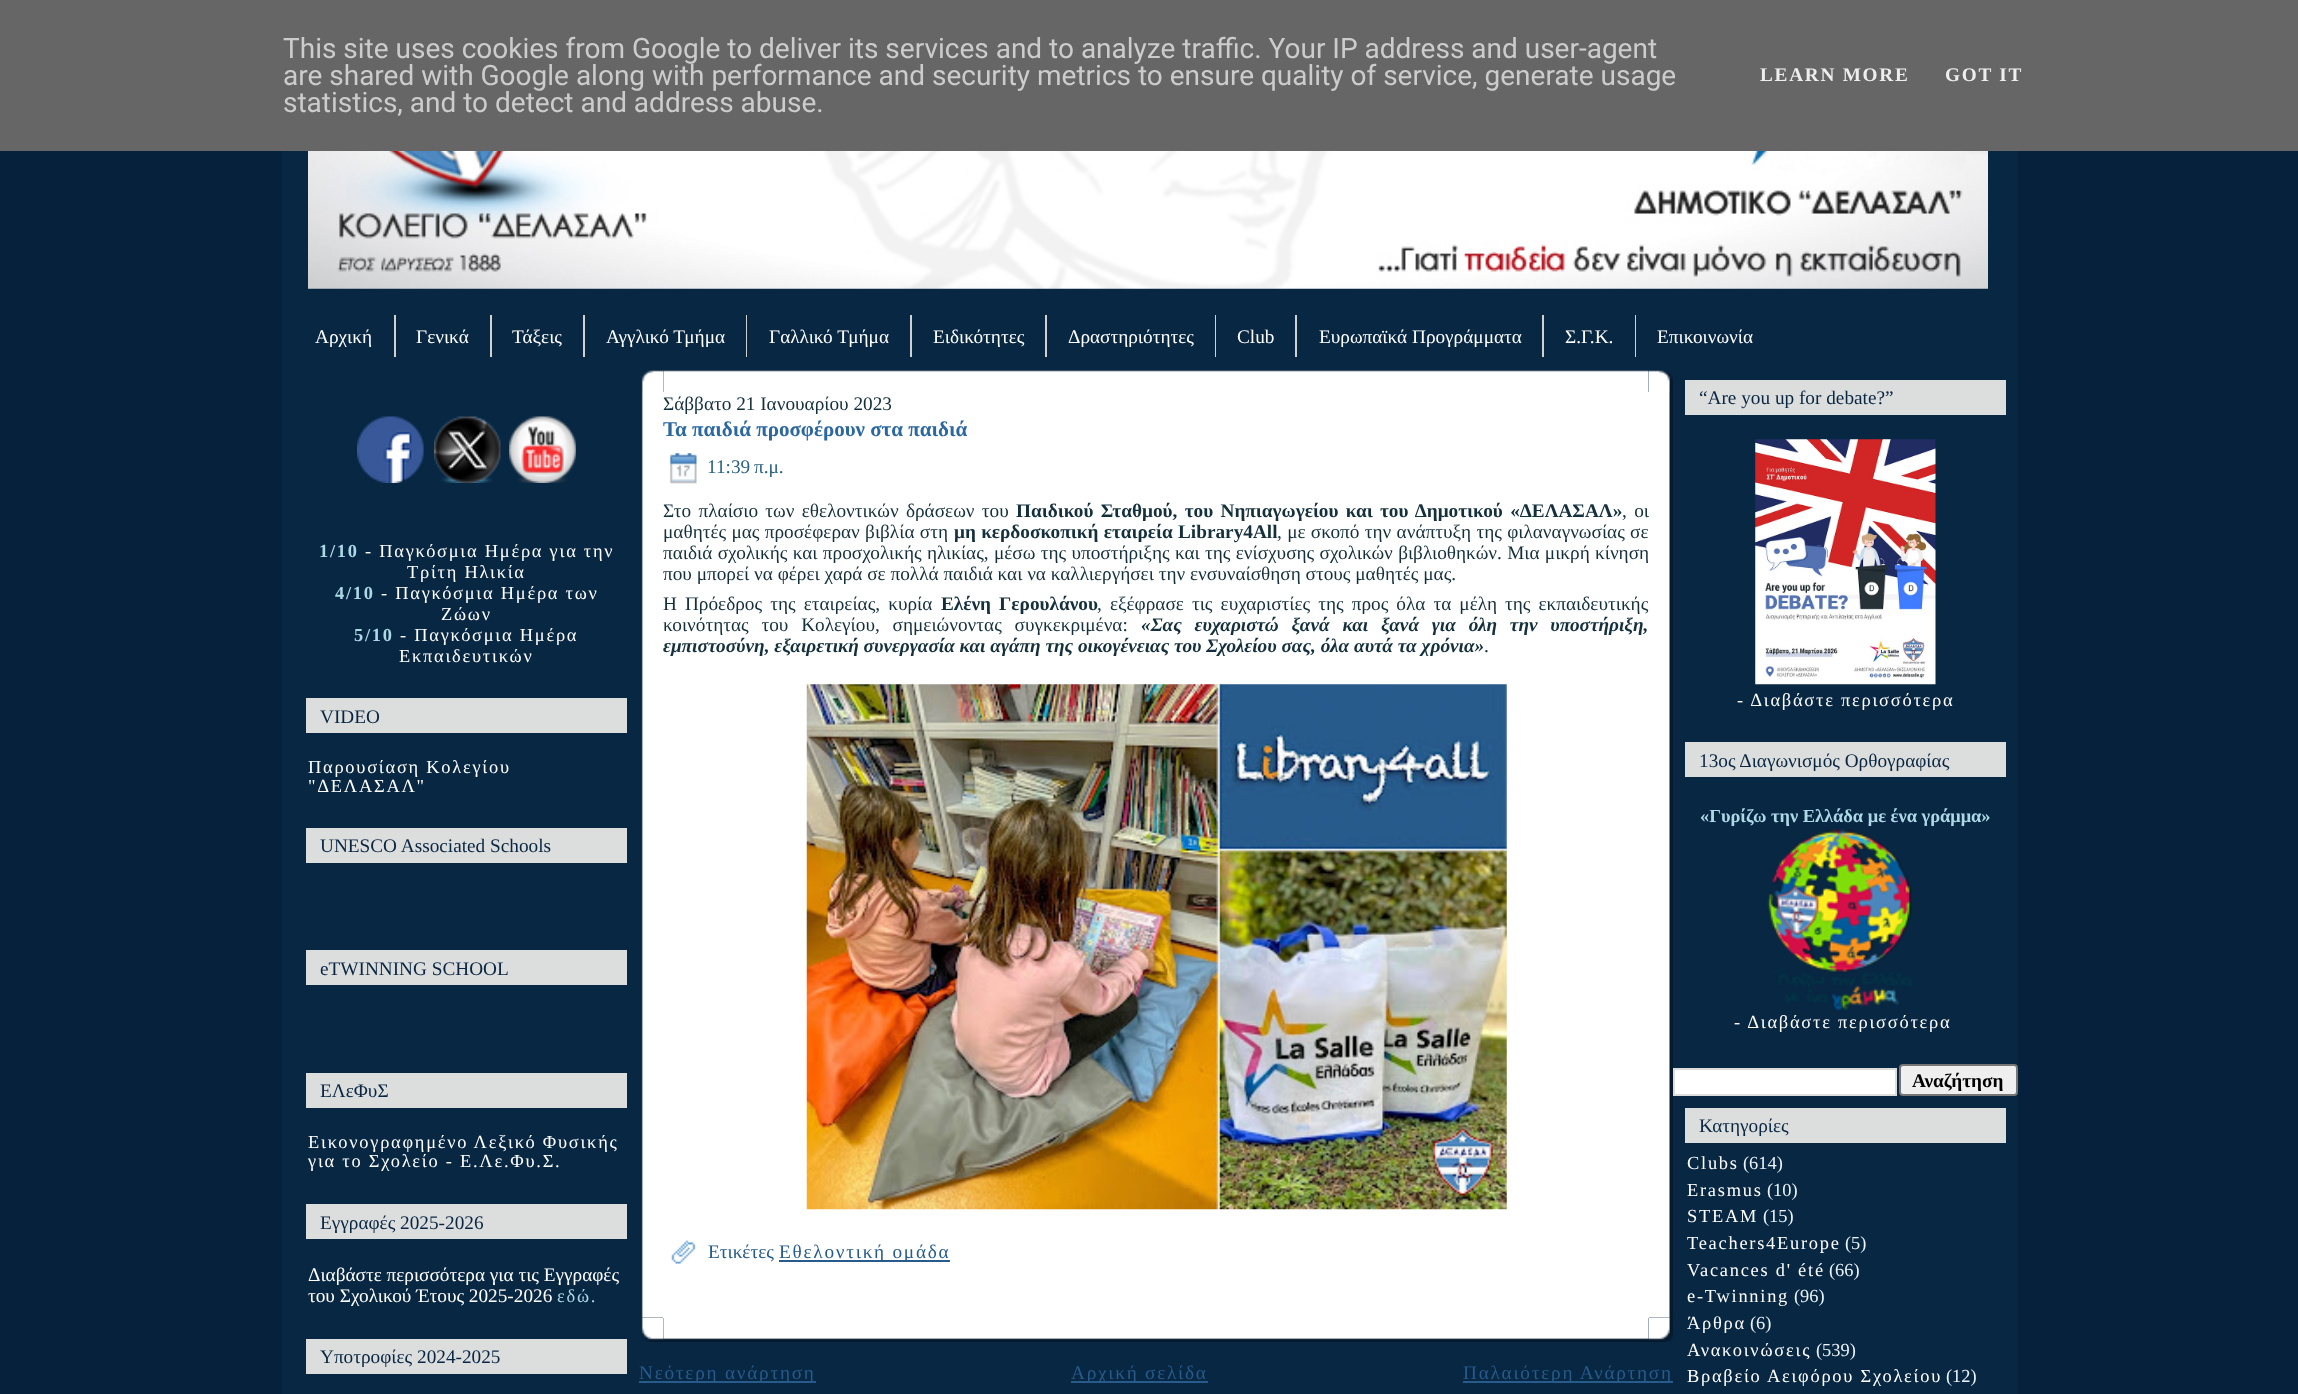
(async () => {
const canvas = document.querySelector("canvas")
canvas.width = 2298
canvas.height = 1394
const c = canvas.getContext("2d")
c.miterLimit = 4
c.fontKerning = "normal"
function T(s,x,y){c.fillText(s,x,y)}
function R(x,y,w,h){c.fillRect(x,y,w,h)}
async function I(src,x,y,w,h){const img=new Image();img.src=src;await img.decode();c.drawImage(img,x,y,w,h)}
c.fillStyle="#05213c"
R(0,0,2298,1394)
c.fillStyle="#666"
R(0,0,2298,151)
c.font="28px Roboto"
c.fillStyle="#ccc"
T("This site uses cookies from Google to deliver its services and to analyze traffic. Your IP address and user-agent",283,58)
T("are shared with Google along with performance and security metrics to ensure quality of service, generate usage",283,85)
T("statistics, and to detect and address abuse.",283,112)
c.letterSpacing="1.75px"
c.font="bold 19.25px Liberation Serif"
c.fillStyle="#eee"
T("LEARN MORE",1760,81)
T("GOT IT",1945,81)
c.fillStyle="#082743"
R(282,151,84,1243)
R(366,288,1568,1106)
R(1934,151,84,1243)
await I("1.png",308,151,1680,138)
c.letterSpacing="0px"
c.font="19.25px Liberation Serif"
c.fillStyle="#fff"
T("Αρχική",315,343)
c.fillStyle="#d2d0d1"
R(394,315,2,42)
c.fillStyle="#fff"
T("Γενικά",416,343)
c.fillStyle="#d2d0d1"
R(490,315,2,42)
c.fillStyle="#fff"
T("Τάξεις",512,343)
c.fillStyle="#d2d0d1"
R(583,315,2,42)
c.fillStyle="#fff"
T("Αγγλικό Τμήμα",606,343)
c.fillStyle="#d2d0d1"
R(746,315,1,42)
c.fillStyle="#fff"
T("Γαλλικό Τμήμα",769,343)
c.fillStyle="#d2d0d1"
R(910,315,2,42)
c.fillStyle="#fff"
T("Ειδικότητες",933,343)
c.fillStyle="#d2d0d1"
R(1045,315,2,42)
c.fillStyle="#fff"
T("Δραστηριότητες",1068,343)
c.fillStyle="#d2d0d1"
R(1215,315,1,42)
c.fillStyle="#fff"
T("Club",1237,343)
c.fillStyle="#d2d0d1"
R(1295,315,2,42)
c.fillStyle="#fff"
T("Ευρωπαϊκά Προγράμματα",1319,343)
c.fillStyle="#d2d0d1"
R(1542,315,2,42)
c.fillStyle="#fff"
T("Σ.Γ.Κ.",1565,343)
c.fillStyle="#d2d0d1"
R(1635,315,1,42)
c.fillStyle="#fff"
T("Επικοινωνία",1657,343)
await I("2.png",357,416,67,67)
await I("3.png",434,416,67,67)
await I("4.png",509,416,67,67)
c.letterSpacing="1.75px"
c.font="bold 18.4px Liberation Serif"
c.fillStyle="#add8e6"
T("1/10",319,557)
c.font="18.4px Liberation Serif"
c.fillStyle="#fff"
T("- Παγκόσμια Ημέρα για την",365,557)
T("Τρίτη Ηλικία",407,578)
c.font="bold 18.4px Liberation Serif"
c.fillStyle="#add8e6"
T("4/10",335,599)
c.font="18.4px Liberation Serif"
c.fillStyle="#fff"
T("- Παγκόσμια Ημέρα των",381,599)
T("Ζώων",441,620)
c.font="bold 18.4px Liberation Serif"
c.fillStyle="#add8e6"
T("5/10",354,641)
c.font="18.4px Liberation Serif"
c.fillStyle="#fff"
T("- Παγκόσμια Ημέρα",400,641)
T("Εκπαιδευτικών",399,662)
c.fillStyle="#dcdddd"
R(306,698,321,35)
c.letterSpacing="0px"
c.font="19.25px Liberation Serif"
c.fillStyle="#082642"
T("VIDEO",320,723)
c.letterSpacing="1.75px"
c.font="18.4px Liberation Serif"
c.fillStyle="#fff"
T("Παρουσίαση Κολεγίου",308,773)
T("\"ΔΕΛΑΣΑΛ\"",308,792)
c.fillStyle="#dcdddd"
R(306,828,321,35)
c.letterSpacing="0px"
c.font="19.25px Liberation Serif"
c.fillStyle="#082642"
T("UNESCO Associated Schools",320,852)
c.fillStyle="#dcdddd"
R(306,950,321,35)
c.fillStyle="#082642"
T("eTWINNING SCHOOL",320,975)
c.fillStyle="#dcdddd"
R(306,1073,321,35)
c.fillStyle="#082642"
T("ΕΛεΦυΣ",320,1097)
c.letterSpacing="1.75px"
c.font="18.4px Liberation Serif"
c.fillStyle="#fff"
T("Εικονογραφημένο Λεξικό Φυσικής",308,1148)
T("για το Σχολείο - Ε.Λε.Φυ.Σ.",308,1167)
c.fillStyle="#dcdddd"
R(306,1204,321,35)
c.letterSpacing="0px"
c.font="19.25px Liberation Serif"
c.fillStyle="#082642"
T("Εγγραφές 2025-2026",320,1229)
c.fillStyle="#fff"
T("Διαβάστε περισσότερα για τις Εγγραφές",308,1281)
T("του Σχολικού Έτους 2025-2026",308,1302)
c.letterSpacing="1.75px"
c.font="18.4px Liberation Serif"
c.fillStyle="#add8e6"
T("εδώ.",557,1302)
c.fillStyle="#dcdddd"
R(306,1339,321,35)
c.letterSpacing="0px"
c.font="19.25px Liberation Serif"
c.fillStyle="#082642"
T("Υποτροφίες 2024-2025",320,1363)
await I("5.png",641,370,23,22)
await I("7.png",1648,370,25,22)
await I("6.png",663,370,986,22)
await I("13.png",641,1317,23,25)
await I("8.png",641,392,22,926)
await I("15.png",1648,1317,25,25)
c.fillStyle="#fff"
R(663,392,986,926)
await I("9.png",1649,392,24,926)
c.fillStyle="#14303d"
T("Σάββατο 21 Ιανουαρίου 2023",663,410)
c.font="bold 21px Liberation Serif"
c.fillStyle="#2c68a0"
T("Τα παιδιά προσφέρουν στα παιδιά",663,436)
await I("10.png",669,453,28,31)
c.font="19.25px Liberation Serif"
c.fillStyle="#2a627e"
T("11:39 π.μ.",707,473)
c.wordSpacing="2.5px"
c.fillStyle="#14303d"
T("Στο πλαίσιο των εθελοντικών δράσεων του",663,517)
c.font="bold 19.25px Liberation Serif"
T("Παιδικού Σταθμού, του Νηπιαγωγείου και του Δημοτικού «ΔΕΛΑΣΑΛ»",1016,517)
c.font="19.25px Liberation Serif"
T(", οι",1622,517)
c.wordSpacing="0.5px"
T("μαθητές μας προσέφεραν βιβλία στη",663,538)
c.font="bold 19.25px Liberation Serif"
T("μη κερδοσκοπική εταιρεία Library4All",954,538)
c.font="19.25px Liberation Serif"
T(", με σκοπό την ανάπτυξη της φιλαναγνωσίας σε",1277,538)
T("παιδιά σχολικής και προσχολικής ηλικίας, μέσω της υποστήριξης και της ενίσχυσης σχολικών βιβλιοθηκών. Μια μικρή κίνηση",663,559)
c.wordSpacing="0px"
T("που μπορεί να φέρει χαρά σε πολλά παιδιά και να καλλιεργήσει την ενσυναίσθηση στους μαθητές μας.",663,580)
c.wordSpacing="3.25px"
T("Η Πρόεδρος της εταιρείας, κυρία",663,610)
c.font="bold 19.25px Liberation Serif"
T("Ελένη Γερουλάνου",941,610)
c.font="19.25px Liberation Serif"
T(", εξέφρασε τις ευχαριστίες της προς όλα τα μέλη της εκπαιδευτικής",1097,610)
c.wordSpacing="8px"
T("κοινότητας του Κολεγίου, σημειώνοντας συγκεκριμένα:",663,631)
c.font="italic bold 19.25px Liberation Serif"
T("«Σας ευχαριστώ ξανά και ξανά για όλη την υποστήριξη,",1141,631)
c.wordSpacing="0px"
T("εμπιστοσύνη, εξαιρετική συνεργασία και αγάπη της οικογένειας του Σχολείου σας, όλα αυτά τα χρόνια»",663,652)
c.font="19.25px Liberation Serif"
T(".",1484,652)
await I("11.png",806,684,701,526)
await I("12.png",671,1240,25,24)
c.fillStyle="#265b8c"
T("Ετικέτες",708,1258)
R(779,1260,171,2)
c.letterSpacing="1.75px"
T("Εθελοντική ομάδα",779,1258)
await I("14.png",663,1318,986,24)
R(639,1381,177,2)
c.save()
c.beginPath()
c.rect(639,1362,1034,21)
c.clip()
T("Νεότερη ανάρτηση",639,1379)
c.restore()
R(1071,1381,137,2)
c.save()
c.beginPath()
c.rect(639,1362,1034,21)
c.clip()
T("Αρχική σελίδα",1071,1379)
c.restore()
R(1463,1381,210,2)
c.save()
c.beginPath()
c.rect(639,1362,1034,21)
c.clip()
T("Παλαιότερη Ανάρτηση",1463,1379)
c.restore()
c.fillStyle="#dcdddd"
R(1685,380,321,35)
c.letterSpacing="0px"
c.fillStyle="#082642"
T("“Are you up for debate?”",1699,404)
await I("16.png",1755,439,181,246)
c.letterSpacing="1.75px"
c.font="18.4px Liberation Serif"
c.fillStyle="#fff"
T("- Διαβάστε περισσότερα",1737,706)
c.fillStyle="#dcdddd"
R(1685,742,321,35)
c.letterSpacing="0px"
c.font="19.25px Liberation Serif"
c.fillStyle="#082642"
T("13ος Διαγωνισμός Ορθογραφίας",1699,767)
c.font="bold 18.4px Liberation Serif"
c.fillStyle="#add8e6"
T("«Γυρίζω την Ελλάδα με ένα γράμμα»",1700,822)
await I("17.png",1767,829,146,181)
c.letterSpacing="1.75px"
c.font="18.4px Liberation Serif"
c.fillStyle="#fff"
T("- Διαβάστε περισσότερα",1734,1028)
c.beginPath()
c.rect(1674,1069,222,26)
c.fill()
c.strokeStyle="#ddd"
c.lineWidth=2
c.stroke()
c.fillStyle="#efefef"
c.beginPath()
c.roundRect(1900,1065,117,30,3)
c.fill()
c.strokeStyle="#767676"
c.stroke()
c.letterSpacing="0px"
c.font="bold 19.25px Liberation Serif"
c.fillStyle="#000"
T("Αναζήτηση",1912,1087)
c.fillStyle="#dcdddd"
R(1685,1108,321,35)
c.font="19.25px Liberation Serif"
c.fillStyle="#082642"
T("Κατηγορίες",1699,1132)
c.letterSpacing="1.75px"
c.font="18.4px Liberation Serif"
c.fillStyle="#fff"
T("Clubs",1687,1169)
c.letterSpacing="0px"
c.fillStyle="#ecf4f9"
T("(614)",1743,1169)
c.letterSpacing="1.75px"
c.fillStyle="#fff"
T("Erasmus",1687,1196)
c.letterSpacing="0px"
c.fillStyle="#ecf4f9"
T("(10)",1767,1196)
c.letterSpacing="1.75px"
c.fillStyle="#fff"
T("STEAM",1687,1222)
c.letterSpacing="0px"
c.fillStyle="#ecf4f9"
T("(15)",1763,1222)
c.letterSpacing="1.75px"
c.fillStyle="#fff"
T("Teachers4Europe",1687,1249)
c.letterSpacing="0px"
c.fillStyle="#ecf4f9"
T("(5)",1845,1249)
c.letterSpacing="1.75px"
c.fillStyle="#fff"
T("Vacances d' été",1687,1276)
c.letterSpacing="0px"
c.fillStyle="#ecf4f9"
T("(66)",1829,1276)
c.letterSpacing="1.75px"
c.fillStyle="#fff"
T("e-Twinning",1687,1302)
c.letterSpacing="0px"
c.fillStyle="#ecf4f9"
T("(96)",1794,1302)
c.letterSpacing="1.75px"
c.fillStyle="#fff"
T("Άρθρα",1687,1329)
c.letterSpacing="0px"
c.fillStyle="#ecf4f9"
T("(6)",1750,1329)
c.letterSpacing="1.75px"
c.fillStyle="#fff"
T("Ανακοινώσεις",1687,1356)
c.letterSpacing="0px"
c.fillStyle="#ecf4f9"
T("(539)",1816,1356)
c.letterSpacing="1.75px"
c.fillStyle="#fff"
T("Βραβείο Αειφόρου Σχολείου",1687,1382)
c.letterSpacing="0px"
c.fillStyle="#ecf4f9"
T("(12)",1946,1382)
})()
